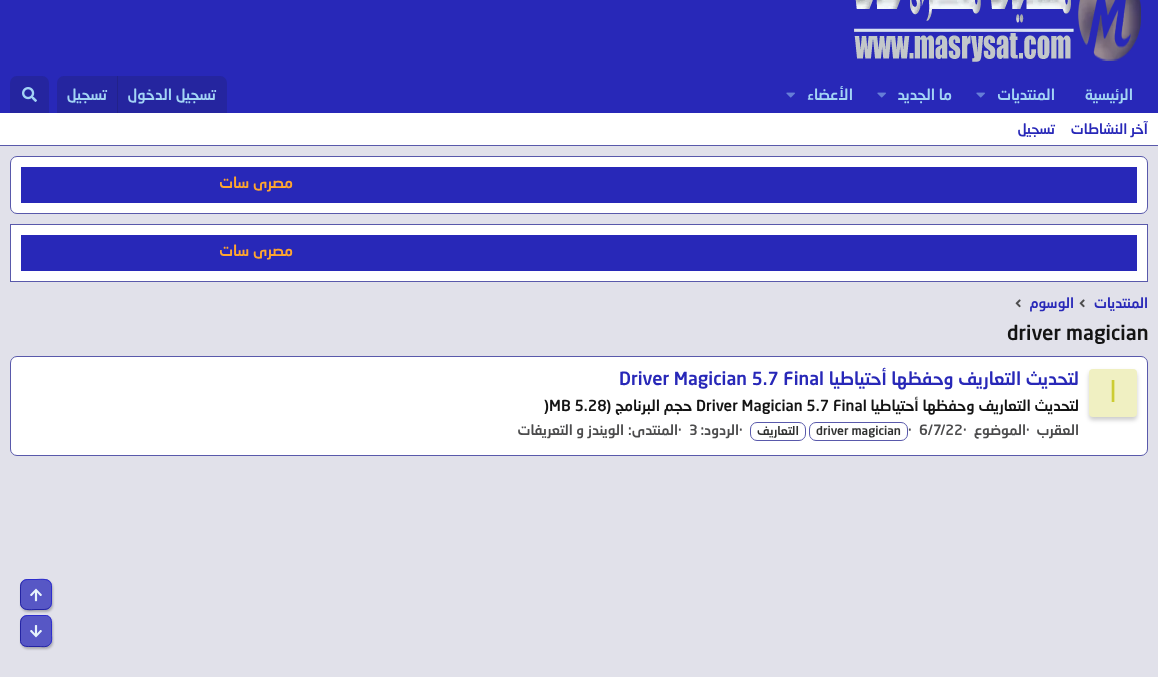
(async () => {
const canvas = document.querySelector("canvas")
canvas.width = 1158
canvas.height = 677
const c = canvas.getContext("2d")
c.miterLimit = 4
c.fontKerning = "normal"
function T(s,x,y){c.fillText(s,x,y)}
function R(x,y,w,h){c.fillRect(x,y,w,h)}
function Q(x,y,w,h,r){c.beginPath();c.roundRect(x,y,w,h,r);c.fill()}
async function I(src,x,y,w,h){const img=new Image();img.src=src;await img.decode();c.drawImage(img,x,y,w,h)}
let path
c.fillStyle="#e1e1ea"
R(0,0,1158,677)
c.fillStyle="#2828b8"
R(0,0,1158,113)
await I("1.png",854,0,287,62)
c.direction="rtl"
c.font="500 15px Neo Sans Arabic"
c.fillStyle="#a3d4f5"
T("الرئيسية",1133,100)
T("المنتديات",1055,100)
await I("2.png",976,92,9,6)
T("ما الجديد",952,100)
await I("2.png",877,92,9,6)
T("الأعضاء",853,100)
await I("2.png",786,92,9,6)
c.fillStyle="#25259f"
c.beginPath()
c.roundRect(57,76,170,37,[7,7,0,0])
c.fill()
c.fillStyle="#a3d4f5"
T("تسجيل الدخول",216,100)
c.fillStyle="#22228a"
R(117,76,1,37)
c.fillStyle="#a3d4f5"
T("تسجيل",107,100)
c.fillStyle="#25259f"
c.beginPath()
c.roundRect(10,76,39,37,[7,7,0,0])
c.fill()
await I("3.png",22,87,15,15)
c.fillStyle="#fff"
R(0,113,1158,32)
c.fillStyle="#5959ab"
R(0,145,1158,1)
c.font="500 14px Neo Sans Arabic"
c.fillStyle="#2828b8"
T("آخر النشاطات",1148,134)
T("تسجيل",1055,134)
c.fillStyle="#fff"
c.beginPath()
c.roundRect(10.5,156.5,1137,57,6.5)
c.fill()
c.strokeStyle="#5959ab"
c.stroke()
c.fillStyle="#2828b8"
R(21,167,1116,36)
c.font="500 15px Neo Sans Arabic"
c.fillStyle="#ffa62f"
T("مصرى سات",293,188)
c.strokeRect(10.5,224.5,1137,57)
c.fillStyle="#fff"
R(11,225,1136,56)
c.fillStyle="#2828b8"
R(21,235,1116,36)
c.fillStyle="#ffa62f"
T("مصرى سات",293,256)
c.font="500 14px Neo Sans Arabic"
c.fillStyle="#2828b8"
T("المنتديات",1148,308)
await I("4.png",1079,299,6,9)
T("الوسوم",1074,308)
await I("4.png",1015,299,6,9)
c.direction="ltr"
c.font="500 20px Neo Sans Arabic"
c.fillStyle="#141414"
T("driver magician",1007,340)
c.fillStyle="#fff"
c.beginPath()
c.roundRect(10.5,356.5,1137,99,6.5)
c.fill()
c.stroke()
c.fillStyle="#00000033"
c.filter="blur(2px)"
c.beginPath()
c.roundRect(1089,372,48,48,4)
c.fill()
c.filter="none"
c.fillStyle="#f0f0c2"
Q(1089,369,48,48,4)
c.direction="rtl"
c.font="29px DejaVu Sans"
c.fillStyle="#cc3"
T("ا",1117,402)
c.font="500 18px Neo Sans Arabic"
c.fillStyle="#2828b8"
T("لتحديث التعاريف وحفظها أحتياطيا",1079,385)
c.direction="ltr"
T("Driver Magician 5.7 Final",619,385)
c.direction="rtl"
c.font="500 15px Neo Sans Arabic"
c.fillStyle="#141414"
T("لتحديث التعاريف وحفظها أحتياطيا",1079,411)
c.direction="ltr"
T("Driver Magician 5.7 Final",696,411)
c.direction="rtl"
T("حجم البرنامج (",692,411)
c.direction="ltr"
T(")MB 5.28",544,411)
c.direction="rtl"
c.font="500 14px Neo Sans Arabic"
c.fillStyle="#4c4c4d"
T("العقرب",1079,435)
c.direction="ltr"
T("·",1026,435)
c.direction="rtl"
T("الموضوع",1026,435)
c.direction="ltr"
T("·",963,435)
T("6/7/22",919,435)
T("·",908,435)
c.beginPath()
c.roundRect(809.5,422.5,98,18,6.5)
c.stroke()
c.font="500 12px Neo Sans Arabic"
c.fillStyle="#303130"
T("driver magician",816,435)
c.beginPath()
c.roundRect(750.5,422.5,55,18,6.5)
c.stroke()
c.direction="rtl"
T("التعاريف",799,435)
c.direction="ltr"
c.font="500 14px Neo Sans Arabic"
c.fillStyle="#4c4c4d"
T("·",739,435)
c.direction="rtl"
T("الردود:",739,435)
c.direction="ltr"
T("3",689,435)
T("·",678,435)
c.direction="rtl"
T("المنتدى:",678,435)
T("الويندز و التعريفات",624,435)
c.save()
path = new Path2D("M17 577h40v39h-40zm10 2h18c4 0 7 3 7 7v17c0 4-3 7-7 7h-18c-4 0-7-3-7-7v-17c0-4 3-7 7-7z")
c.clip(path,"evenodd")
c.fillStyle="#00000040"
c.filter="blur(1px)"
c.beginPath()
c.roundRect(21,581,32,31,7)
c.fill()
c.filter="none"
c.restore()
c.fillStyle="#2828b8bf"
Q(20,579,32,31,7)
path = new Path2D("M22.5 581.5c2-2 4.5-2 7.5-2h6c5 0 14.5-2 15.5 6v14.5c0 3 0 5.5-2 7.5")
c.strokeStyle="#2d2dcd"
c.stroke(path)
path = new Path2D("M49.5 607.5c-2 2-4.5 2-7.5 2h-6c-5 0-14.5 2-15.5-6v-14.5c0-3 0-5.5 2-7.5")
c.strokeStyle="#2424a3"
c.stroke(path)
await I("5.png",30,588,12,14)
c.save()
path = new Path2D("M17 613h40v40h-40zm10 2h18c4 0 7 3 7 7v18c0 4-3 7-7 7h-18c-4 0-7-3-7-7v-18c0-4 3-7 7-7z")
c.clip(path,"evenodd")
c.fillStyle="#00000040"
c.filter="blur(1px)"
c.beginPath()
c.roundRect(21,617,32,32,7)
c.fill()
c.filter="none"
c.restore()
Q(20,615,32,32,7)
path = new Path2D("M22.5 617.5c2-2 4.5-2 7.5-2h16.5c5 1 5 5.5 5 9.5v9c0 3.5 1 8-2 10.5")
c.strokeStyle="#2d2dcd"
c.stroke(path)
path = new Path2D("M49.5 644.5c-2.5 3-7 2-10.5 2h-9c-4 0-8.5 0-9.5-5v-16.5c0-3 0-5.5 2-7.5")
c.strokeStyle="#2424a3"
c.stroke(path)
await I("6.png",30,625,12,13)
})()
